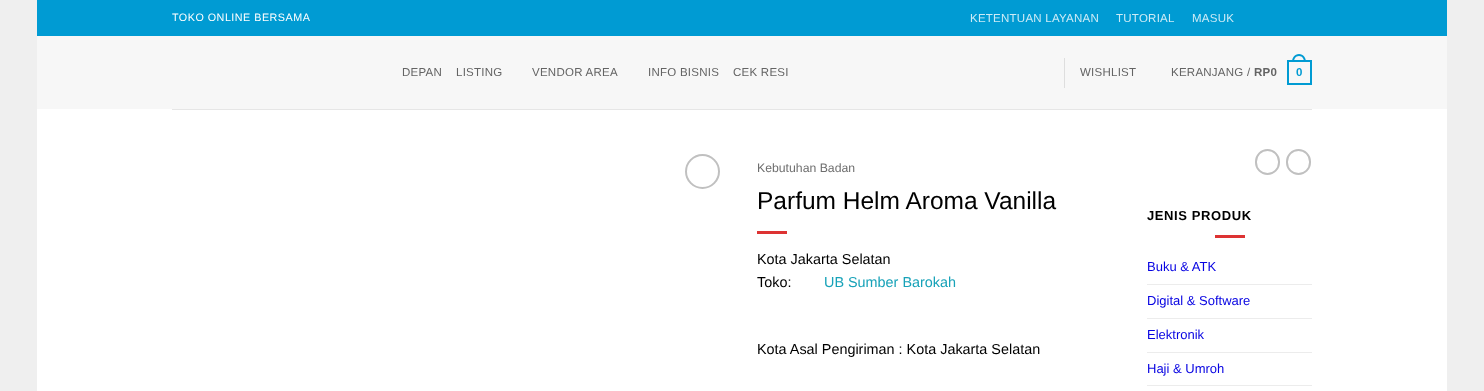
(async () => {
const canvas = document.querySelector("canvas")
canvas.width = 1484
canvas.height = 391
const c = canvas.getContext("2d")
c.miterLimit = 4
c.fontKerning = "normal"
function T(s,x,y){c.fillText(s,x,y)}
function R(x,y,w,h){c.fillRect(x,y,w,h)}
let path
c.fillStyle="#efefef"
R(0,0,1484,391)
c.fillStyle="#fff"
R(37,109,1410,282)
c.fillStyle="#009bd3"
R(37,0,1410,36)
c.letterSpacing="0.5px"
c.font="10.75px Liberation Sans"
c.fillStyle="#fff"
T("TOKO ONLINE BERSAMA",172,21)
c.letterSpacing="0.25px"
c.font="11.5px Liberation Sans"
c.fillStyle="#ccebf6"
T("KETENTUAN LAYANAN",970,22)
T("TUTORIAL",1116,22)
T("MASUK",1192,22)
c.fillStyle="#f7f7f7"
R(37,36,1410,73)
c.fillStyle="#646464"
T("DEPAN",402,76)
T("LISTING",456,76)
T("VENDOR AREA",532,76)
T("INFO BISNIS",648,76)
T("CEK RESI",733,76)
c.fillStyle="#dedede"
R(1064,58,1,30)
c.fillStyle="#646464"
T("WISHLIST",1080,76)
T("KERANJANG /",1171,76)
c.font="bold 11.5px Liberation Sans"
T("RP0",1254,76)
c.strokeStyle="#009bd3"
c.lineWidth=2
c.strokeRect(1288,61,23,23)
c.fillStyle="#009bd3"
path = new Path2D("M1299 54c4.5 0 7 4 7 8h-14c0-4 2.5-8 7-8zm0 2c3.5 0 5 3 5 6h-10c0-3 1.5-6 5-6z")
c.fill(path,"evenodd")
T("0",1296,76)
c.fillStyle="#e6e6e6"
R(172,109,1140,1)
c.beginPath()
c.arc(702.5,171.5,16.5,0,7)
c.strokeStyle="#c0c0c0"
c.stroke()
c.letterSpacing="0px"
c.font="12.25px Liberation Sans"
c.fillStyle="#6e6e6e"
T("Kebutuhan Badan",757,172)
c.font="24.5px Liberation Sans"
c.fillStyle="#000"
T("Parfum Helm Aroma Vanilla",757,209)
c.fillStyle="#d33"
R(757,231,30,3)
c.font="14.4px Liberation Sans"
c.fillStyle="#000"
T("Kota Jakarta Selatan",757,264)
T("Toko:",757,287)
c.fillStyle="#17a2b8"
T("UB Sumber Barokah",824,287)
c.fillStyle="#000"
T("Kota Asal Pengiriman : Kota Jakarta Selatan",757,354)
c.beginPath()
c.roundRect(1256,150,23,24,11.5)
c.stroke()
c.beginPath()
c.roundRect(1287,150,23,24,11.5)
c.stroke()
c.letterSpacing="0.6px"
c.font="bold 13px Liberation Sans"
T("JENIS PRODUK",1147,220)
c.fillStyle="#d33"
R(1215,235,30,3)
c.letterSpacing="0px"
c.font="13px Liberation Sans"
c.fillStyle="#0703e2"
T("Buku & ATK",1147,271)
c.fillStyle="#ececec"
R(1147,284,165,1)
c.fillStyle="#0703e2"
T("Digital & Software",1147,305)
c.fillStyle="#ececec"
R(1147,318,165,1)
c.fillStyle="#0703e2"
T("Elektronik",1147,339)
c.fillStyle="#ececec"
R(1147,352,165,1)
c.fillStyle="#0703e2"
T("Haji & Umroh",1147,373)
c.fillStyle="#ececec"
R(1147,385,165,1)
})()
